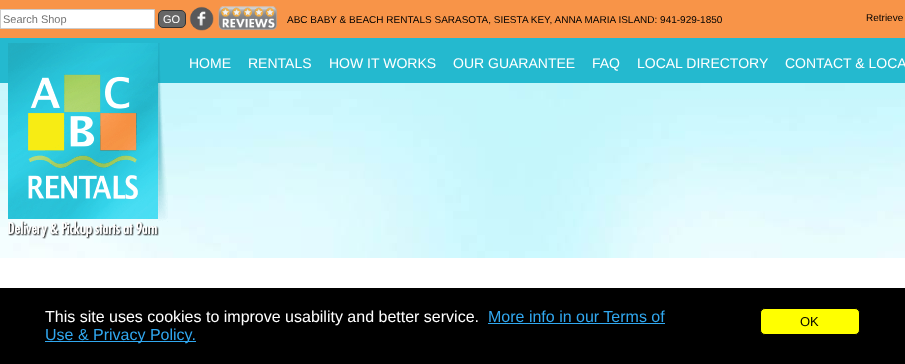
(async () => {
const canvas = document.querySelector("canvas")
canvas.width = 905
canvas.height = 364
const c = canvas.getContext("2d")
c.miterLimit = 4
c.fontKerning = "normal"
function T(s,x,y){c.fillText(s,x,y)}
function R(x,y,w,h){c.fillRect(x,y,w,h)}
async function I(src,x,y,w,h){const img=new Image();img.src=src;await img.decode();c.drawImage(img,x,y,w,h)}
c.fillStyle="#fff"
R(0,0,905,364)
c.fillStyle="#f89448"
R(0,0,905,38)
c.fillStyle="#fff"
c.beginPath()
c.rect(.5,9.5,154,19)
c.fill()
c.strokeStyle="#ccc"
c.stroke()
c.font="11px Liberation Sans"
c.fillStyle="#757575"
T("Search Shop",3,23)
c.fillStyle="#666"
c.beginPath()
c.roundRect(158.5,10.5,27,17,4.5)
c.fill()
c.strokeStyle="#333"
c.stroke()
c.fillStyle="#fff"
T("GO",163,23)
await I("1.png",189,6,25,25)
await I("2.png",218,6,59,24)
c.font="10px Liberation Sans"
c.fillStyle="#000"
T("ABC BABY & BEACH RENTALS SARASOTA, SIESTA KEY, ANNA MARIA ISLAND: 941-929-1850",287,23)
T("Retrieve",866,21)
c.fillStyle="#24b9cf"
R(0,38,905,45)
await I("4.png",0,83,905,175)
await I("3.png",8,43,160,196)
c.font="14px Liberation Sans"
c.fillStyle="#fff"
T("HOME",189,68)
T("RENTALS",248,68)
T("HOW IT WORKS",329,68)
T("OUR GUARANTEE",453,68)
T("FAQ",592,68)
T("LOCAL DIRECTORY",637,68)
T("CONTACT & LOCA",785,68)
c.fillStyle="#000"
R(0,288,905,76)
c.font="16px Liberation Sans"
c.fillStyle="#fff"
T("This site uses cookies to improve usability and better service.",45,322)
c.fillStyle="#31a8f0"
T("More info in our Terms of",488,322)
R(488,323,177,1)
R(45,341,151,1)
T("Use & Privacy Policy.",45,340)
c.fillStyle="#ff0"
c.beginPath()
c.roundRect(760.5,308.5,99,26,4.5)
c.fill()
c.strokeStyle="#000"
c.stroke()
c.font="13px Liberation Sans"
c.fillStyle="#000"
T("OK",800,326)
})()
